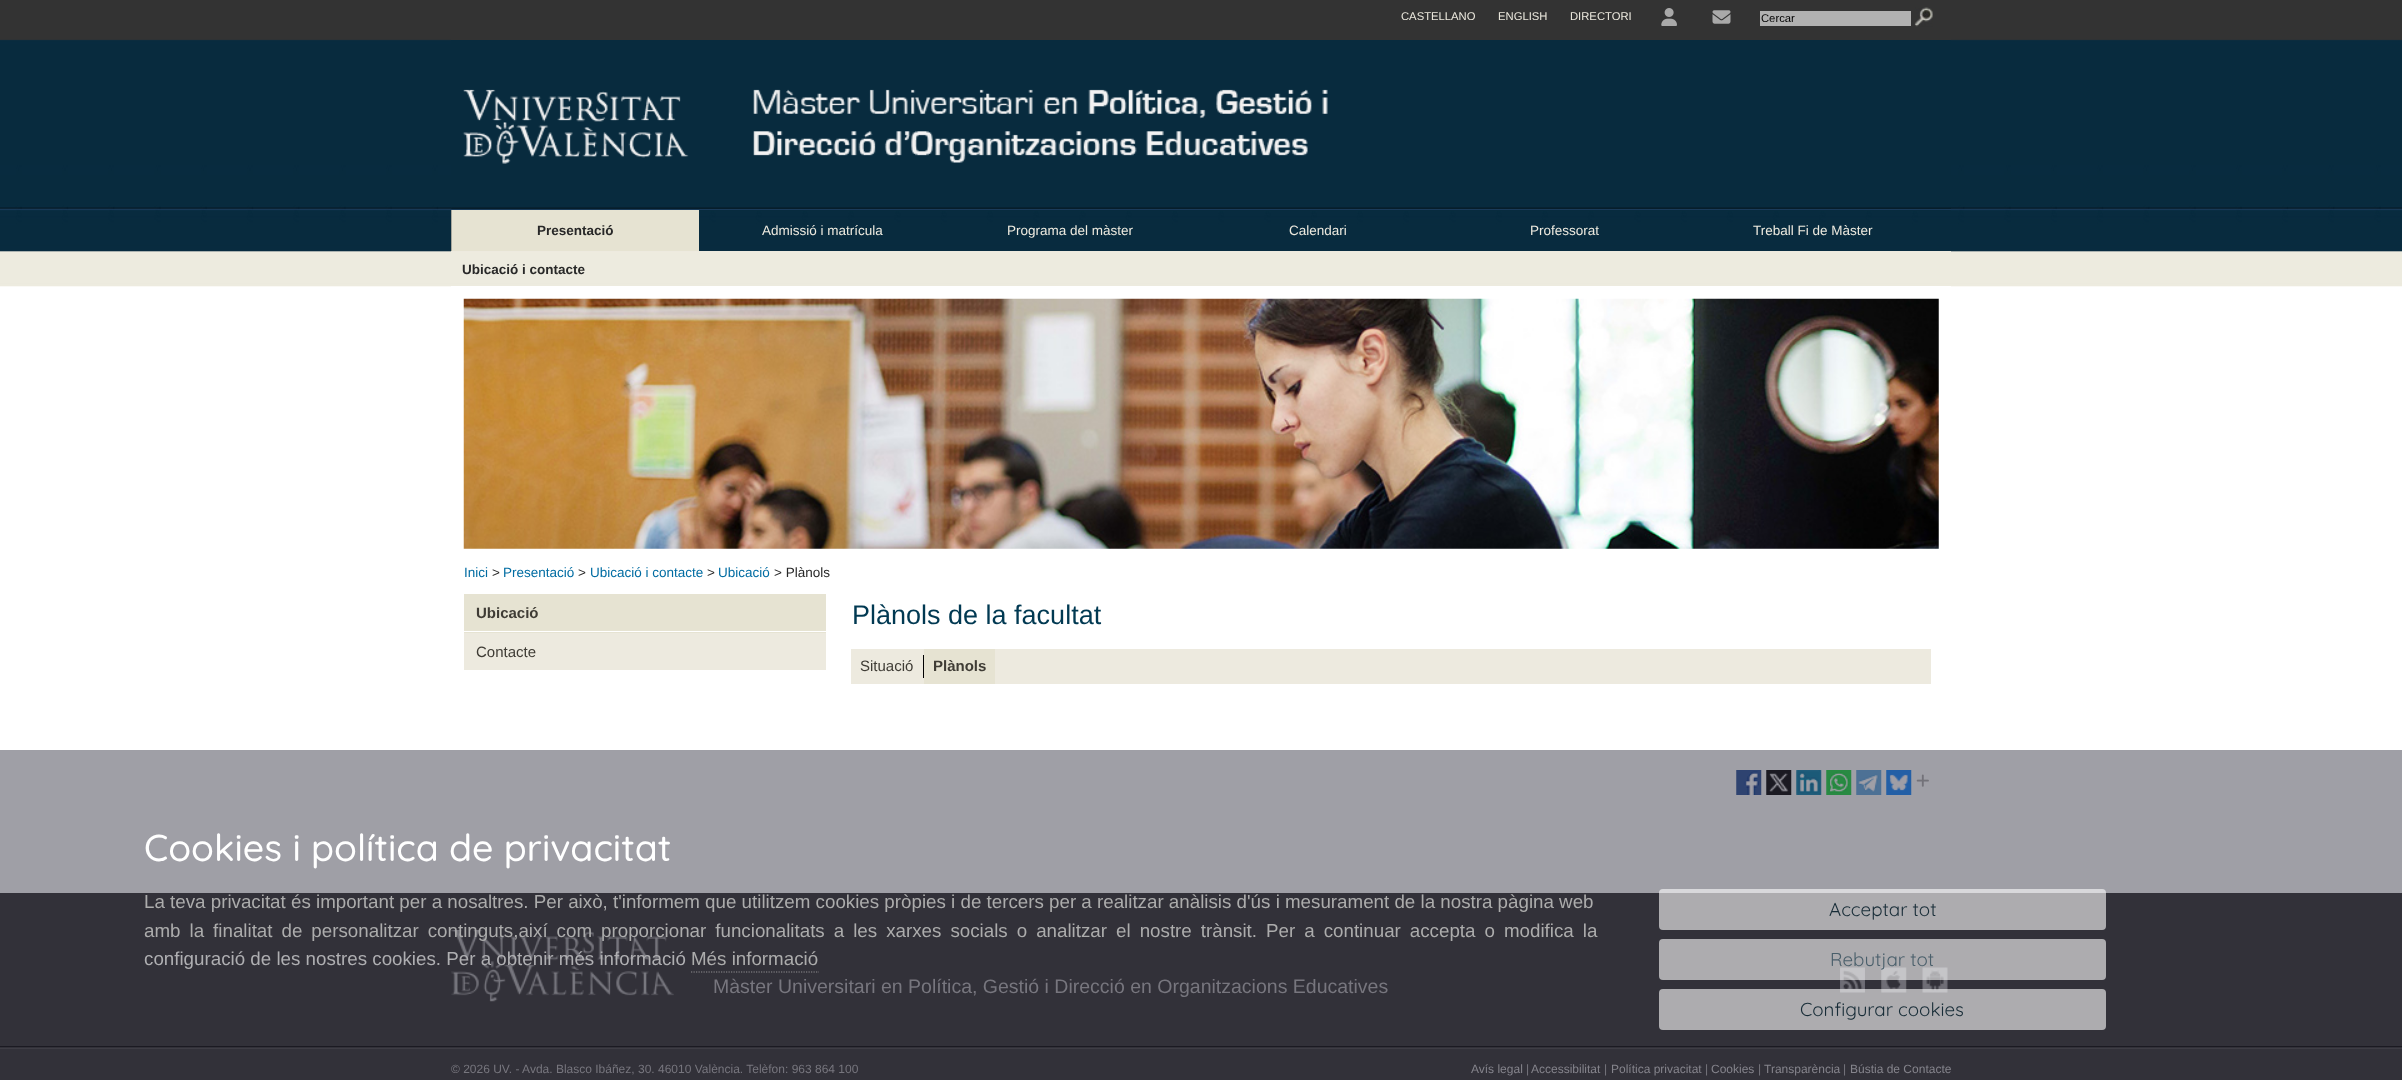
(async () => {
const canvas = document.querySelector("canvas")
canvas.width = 2402
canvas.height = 1080
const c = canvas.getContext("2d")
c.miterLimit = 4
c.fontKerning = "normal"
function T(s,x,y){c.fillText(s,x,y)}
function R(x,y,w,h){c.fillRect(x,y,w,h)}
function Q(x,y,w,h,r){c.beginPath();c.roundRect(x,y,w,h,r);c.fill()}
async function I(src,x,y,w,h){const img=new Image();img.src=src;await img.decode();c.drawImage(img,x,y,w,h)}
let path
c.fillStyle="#fff"
R(0,0,2402,1080)
c.fillStyle="#9f9fa6"
R(0,750,2402,143)
await I("1.png",0,0,2402,287)
c.fillStyle="#fff"
R(451,286,1500,1)
c.fillStyle="#333"
R(451,39,1500,1)
c.font="11.25px Liberation Sans"
c.fillStyle="#edeadf"
T("CASTELLANO",1401,20)
T("ENGLISH",1498,20)
T("DIRECTORI",1570,20)
await I("2.png",1661,8,16,18)
await I("3.png",1712,10,19,14)
c.fillStyle="#b1b1b1"
R(1760,11,151,15)
c.fillStyle="#000"
T("Cercar",1761,22)
await I("4.png",1914,7,19,20)
c.fillStyle="#082b3e"
R(451,40,1500,169)
await I("5.png",451,207,1500,2)
await I("6.png",462,89,866,75)
R(699,210,1252,1)
c.fillStyle="#1a3b5a"
R(451,209,1500,1)
c.fillStyle="#e6e3d2"
R(452,210,247,41)
c.fillStyle="#a6a69c"
R(451,210,1,41)
c.font="bold 13.5px Liberation Sans"
c.fillStyle="#282828"
T("Presentació",537,235)
c.font="13.5px Liberation Sans"
c.fillStyle="#edeadf"
T("Admissió i matrícula",762,235)
T("Programa del màster",1007,235)
T("Calendari",1289,235)
T("Professorat",1530,235)
T("Treball Fi de Màster",1753,235)
R(451,251,1500,1)
c.font="bold 13.5px Liberation Sans"
c.fillStyle="#282828"
T("Ubicació i contacte",462,274)
await I("7.png",463,298,1476,251)
c.font="13.5px Liberation Sans"
c.fillStyle="#016ca2"
T("Inici",464,577)
c.fillStyle="#282828"
T(">",492,577)
c.fillStyle="#016ca2"
T("Presentació",503,577)
c.fillStyle="#282828"
T(">",578,577)
c.fillStyle="#016ca2"
T("Ubicació i contacte",590,577)
c.fillStyle="#282828"
T(">",707,577)
c.fillStyle="#016ca2"
T("Ubicació",718,577)
c.fillStyle="#282828"
T("> Plànols",774,577)
c.fillStyle="#edeadf"
R(464,633,362,37)
c.fillStyle="#e6e3d2"
R(464,594,362,39)
c.fillStyle="#fff"
R(464,631,362,1)
c.font="bold 15px Liberation Sans"
c.fillStyle="#3f3c35"
T("Ubicació",476,618)
c.font="15px Liberation Sans"
T("Contacte",476,657)
c.font="27px Liberation Sans"
c.fillStyle="#013952"
T("Plànols de la facultat",852,624)
c.fillStyle="#edeadf"
R(851,649,1080,35)
c.font="15px Liberation Sans"
c.fillStyle="#3f3c35"
T("Situació",860,671)
c.fillStyle="#000"
R(923,655,1,23)
c.fillStyle="#e6e3d2"
R(924,649,71,35)
c.font="bold 15px Liberation Sans"
c.fillStyle="#3f3c35"
T("Plànols",933,671)
await I("8.png",1736,770,26,25)
await I("9.png",1766,770,26,25)
await I("10.png",1796,770,26,25)
await I("11.png",1826,770,26,25)
await I("12.png",1856,770,26,25)
await I("13.png",1886,770,26,25)
await I("14.png",1916,774,13,13)
c.fillStyle="#323139"
R(0,893,2402,187)
await I("15.png",451,930,223,72)
c.font="19.5px Liberation Sans"
c.fillStyle="#77767e"
T("Màster Universitari en Política, Gestió i Direcció en Organitzacions Educatives",713,993)
await I("16.png",1840,967,25,26)
await I("17.png",1881,967,26,26)
await I("18.png",1922,967,26,26)
c.fillStyle="#1b1a22"
R(0,1046,2402,1)
c.fillStyle="#3e3d45"
R(0,1048,2402,1)
c.font="12px Liberation Sans"
c.fillStyle="#77767e"
T("© 2026 UV. - Avda. Blasco Ibáñez, 30. 46010 València. Telèfon: 963 864 100",451,1073)
c.fillStyle="#85848c"
T("Avís legal",1471,1073)
c.fillStyle="#77767e"
T("|",1526,1073)
c.fillStyle="#85848c"
T("Accessibilitat",1531,1073)
c.fillStyle="#77767e"
T("|",1604,1073)
c.fillStyle="#85848c"
T("Política privacitat",1611,1073)
c.fillStyle="#77767e"
T("|",1705,1073)
c.fillStyle="#85848c"
T("Cookies",1711,1073)
c.fillStyle="#77767e"
T("|",1758,1073)
c.fillStyle="#85848c"
T("Transparència",1764,1073)
c.fillStyle="#77767e"
T("|",1843,1073)
c.fillStyle="#85848c"
T("Bústia de Contacte",1850,1073)
c.font="500 37.5px Quicksand"
c.fillStyle="#fff"
T("Cookies i política de privacitat",144,861)
c.font="18.75px Liberation Sans"
c.fillStyle="#acacac"
T("La teva privacitat és important per a nosaltres. Per això, t'informem que utilitzem cookies pròpies i de tercers per a realitzar anàlisis d'ús i mesurament de la nostra pàgina web",144,908)
c.wordSpacing="3.8px"
T("amb la finalitat de personalitzar continguts,així com proporcionar funcionalitats a les xarxes socials o analitzar el nostre trànsit. Per a continuar accepta o modifica la",144,937)
c.wordSpacing="0px"
c.fillStyle="#afafb2"
T("configuració de les nostres cookies. Per a obtenir més informació",144,965)
c.fillStyle="#acacac"
T("Més informació",691,965)
path = new Path2D("M691 972h128")
c.strokeStyle="#8e8d8f"
c.lineWidth=1.2
c.setLineDash([1.25,1.25])
c.stroke(path)
c.fillStyle="#ffffff99"
Q(1659,889,447,41,4)
c.font="18.75px Quicksand"
c.fillStyle="#172c37"
T("Acceptar tot",1829,916)
c.fillStyle="#ffffff99"
Q(1659,939,447,41,4)
c.fillStyle="#4a5f6b"
T("Rebutjar tot",1830,966)
c.fillStyle="#ffffff99"
Q(1659,989,447,41,4)
c.fillStyle="#172c37"
T("Configurar cookies",1800,1016)
})()
